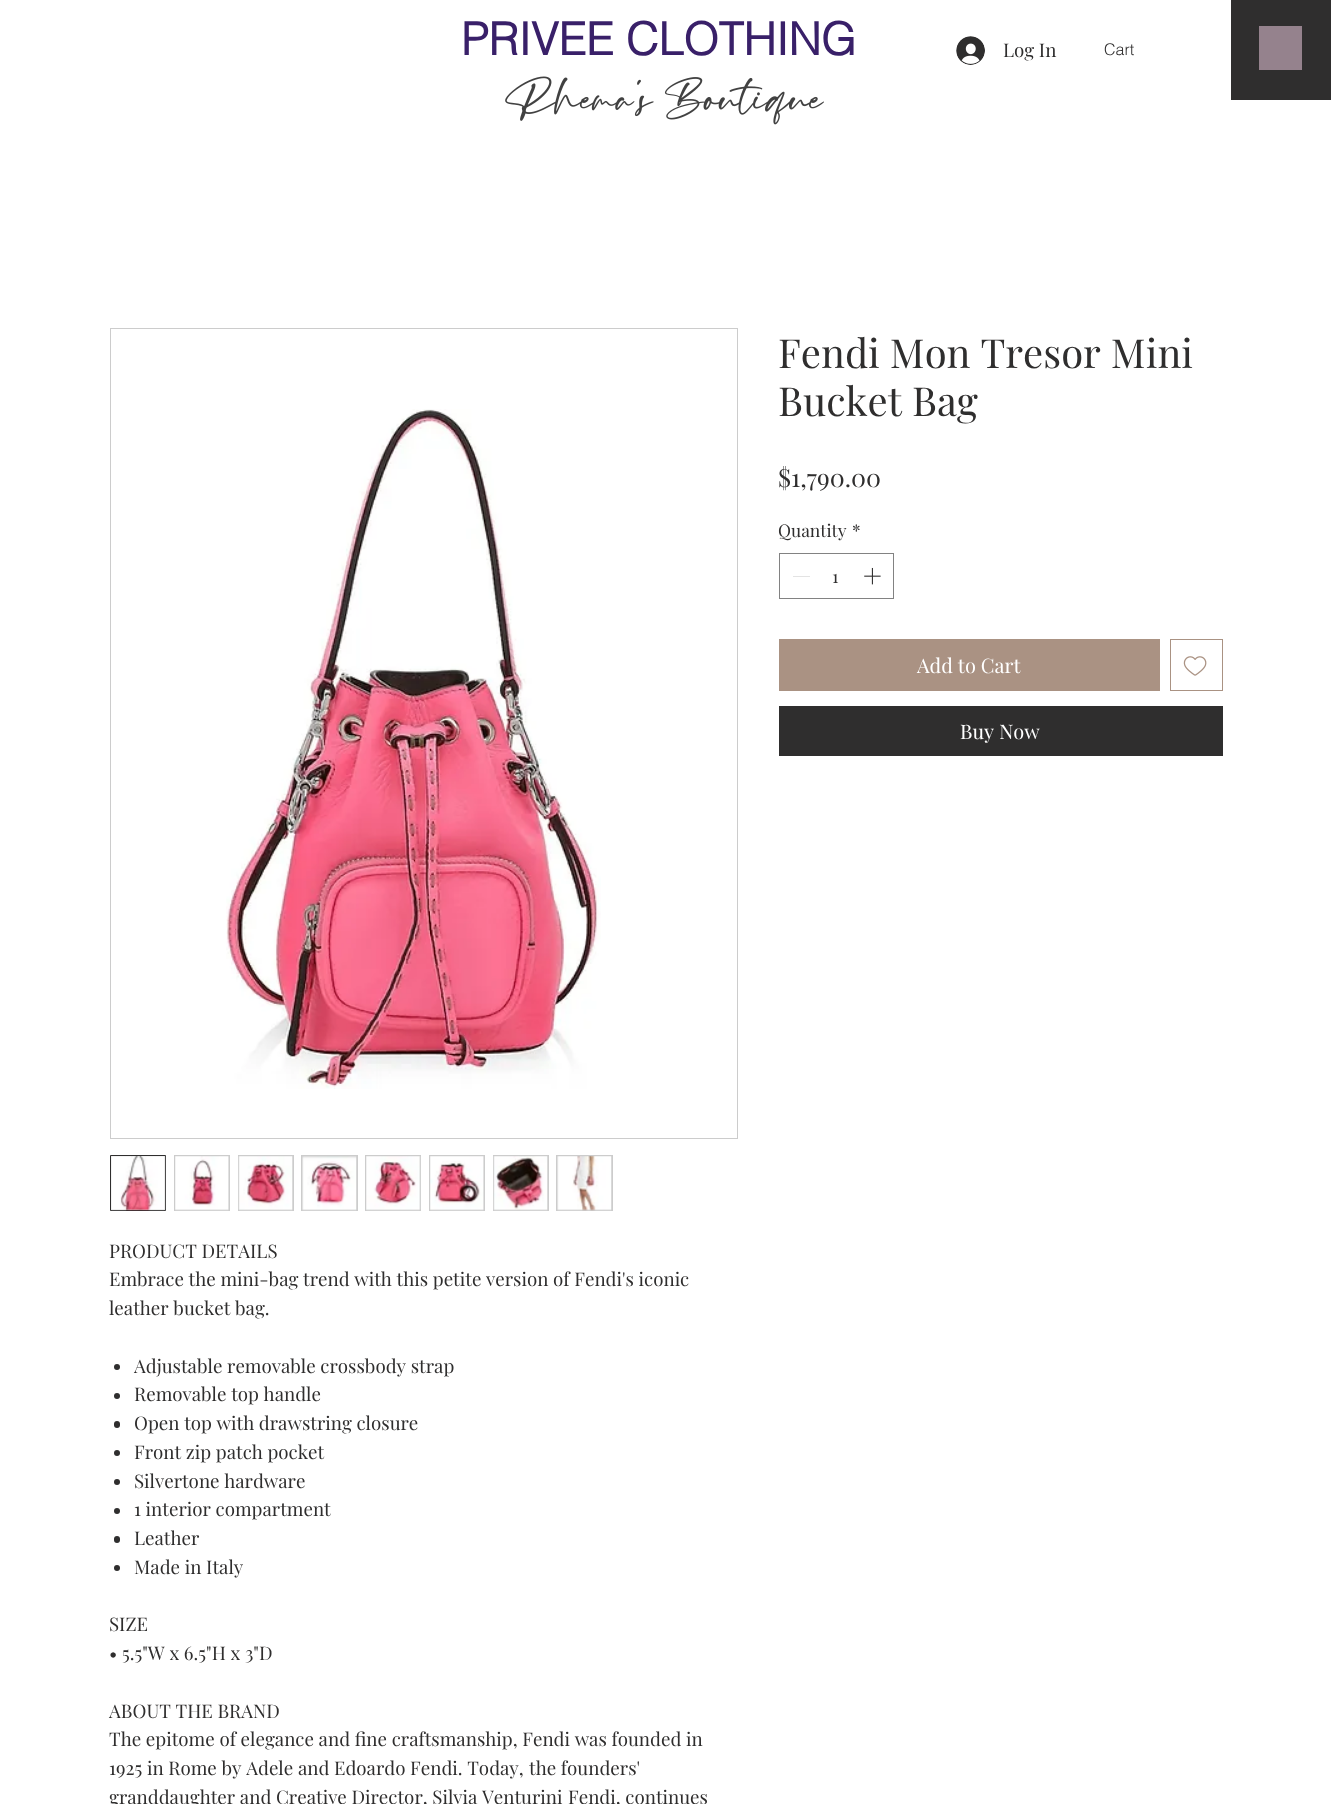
(async () => {
const canvas = document.querySelector("canvas")
canvas.width = 1331
canvas.height = 1804
const c = canvas.getContext("2d")
c.miterLimit = 4
c.fontKerning = "none"
function T(s,x,y){c.fillText(s,x,y)}
function R(x,y,w,h){c.fillRect(x,y,w,h)}
function Q(x,y,w,h,r){c.beginPath();c.roundRect(x,y,w,h,r);c.fill()}
async function I(src,x,y,w,h){const img=new Image();img.src=src;await img.decode();c.drawImage(img,x,y,w,h)}
c.fillStyle="#fff"
R(0,0,1331,1804)
c.font="bold 45px helvetica"
c.fillStyle="#392069"
T("PRIVEE CLOTHING",461,55)
await I("1.png",505,76,319,49)
await I("2.png",956,36,29,29)
c.font="18.75px Playfair Display"
c.fillStyle="#2f2e2e"
T("Log In",1003,57)
c.font="300 16px helvetica"
T("Cart",1104,55)
R(1231,0,100,100)
c.fillStyle="#95828d"
R(1259,26,43,44)
c.font="40px Playfair Display"
c.fillStyle="#2f2e2e"
T("Fendi Mon Tresor Mini",778,368)
T("Bucket Bag",778,416)
c.font="25px Playfair Display"
T("$1,790.00",778,487)
c.font="17.5px Playfair Display"
T("Quantity",778,537)
T("*",852,537)
c.strokeStyle="#828282"
c.strokeRect(779.5,553.5,114,45)
c.fillStyle="#e3e3e3"
R(793,576,17,1)
c.fillStyle="#2f2e2e"
T("1",832,583)
await I("3.png",864,567,17,18)
c.fillStyle="#aa9283"
R(779,639,381,52)
c.font="20px Playfair Display"
c.fillStyle="#fff"
T("Add to Cart",917,673)
c.strokeStyle="#aa9283"
c.strokeRect(1170.5,639.5,52,51)
await I("4.png",1183,656,24,20)
c.fillStyle="#2f2e2e"
R(779,706,444,50)
c.fillStyle="#fff"
T("Buy Now",960,739)
c.strokeStyle="#ccc"
c.strokeRect(110.5,328.5,627,810)
await I("5.png",226,409,375,680)
c.fillStyle="#ccc"
c.beginPath()
c.rect(110.5,1155.5,55,55)
c.fill()
c.strokeStyle="#2f2e2e"
c.stroke()
await I("6.png",111,1156,55,55)
R(174,1155,56,56)
await I("7.png",175,1156,54,55)
R(238,1155,56,56)
await I("8.png",238,1156,55,55)
R(301,1155,57,56)
await I("9.png",302,1156,55,55)
R(365,1155,56,56)
await I("10.png",366,1156,55,55)
R(429,1155,56,56)
await I("11.png",430,1156,54,55)
R(493,1155,56,56)
await I("12.png",493,1156,55,55)
R(556,1155,57,56)
await I("13.png",557,1156,55,55)
c.font="18.75px Playfair Display"
c.fillStyle="#2f2e2e"
T("PRODUCT DETAILS",109,1258)
T("Embrace the mini-bag trend with this petite version of Fendi's iconic",109,1286)
T("leather bucket bag.",109,1315)
c.beginPath()
c.arc(117,1367,3,0,7)
c.fill()
T("Adjustable removable crossbody strap",134,1373)
c.beginPath()
c.arc(117,1396,3,0,7)
c.fill()
T("Removable top handle",134,1401)
Q(114,1421,6,7,3)
T("Open top with drawstring closure",134,1430)
c.beginPath()
c.arc(117,1453,3,0,7)
c.fill()
T("Front zip patch pocket",134,1459)
c.beginPath()
c.arc(117,1482,3,0,7)
c.fill()
T("Silvertone hardware",134,1488)
c.beginPath()
c.arc(117,1511,3,0,7)
c.fill()
T("1 interior compartment",134,1516)
Q(114,1536,6,7,3)
T("Leather",134,1545)
c.beginPath()
c.arc(117,1568,3,0,7)
c.fill()
T("Made in Italy",134,1574)
T("SIZE",109,1631)
T("• 5.5\"W x 6.5\"H x 3\"D",109,1660)
T("ABOUT THE BRAND",109,1718)
T("The epitome of elegance and fine craftsmanship, Fendi was founded in",109,1746)
T("1925 in Rome by Adele and Edoardo Fendi. Today,",109,1775)
T("the founders'",529,1775)
T("granddaughter and Creative Director, Silvia Venturini",109,1804)
T("Fendi, continues",568,1804)
})()
